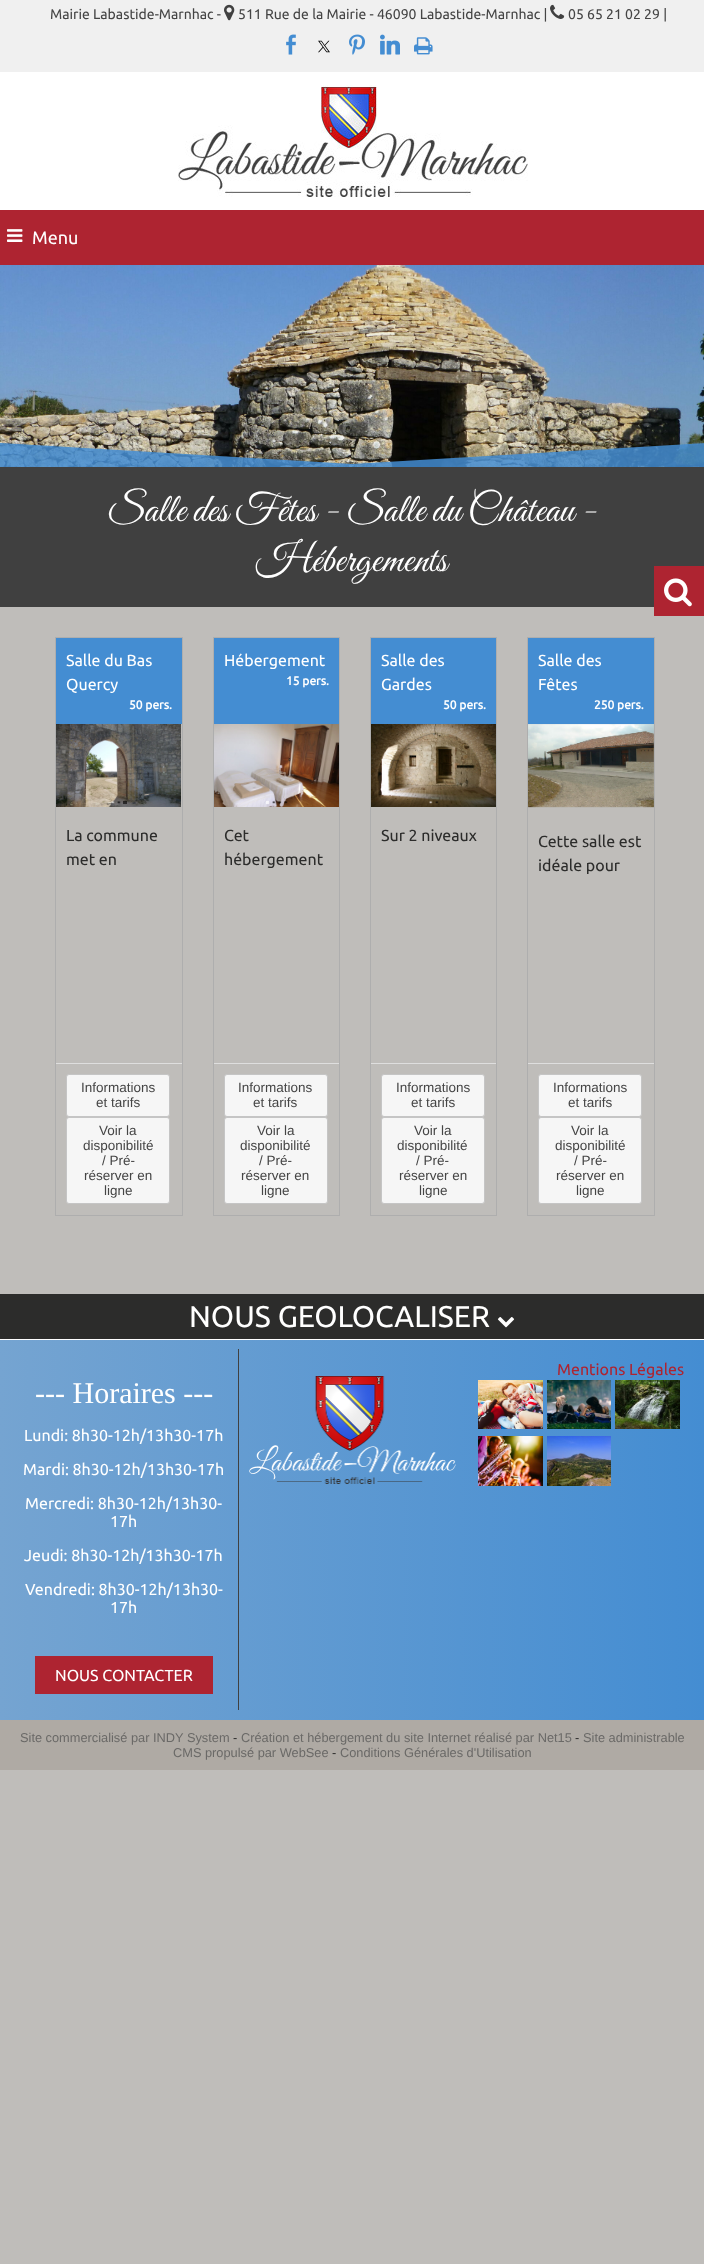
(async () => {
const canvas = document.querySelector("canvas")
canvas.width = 704
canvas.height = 2264
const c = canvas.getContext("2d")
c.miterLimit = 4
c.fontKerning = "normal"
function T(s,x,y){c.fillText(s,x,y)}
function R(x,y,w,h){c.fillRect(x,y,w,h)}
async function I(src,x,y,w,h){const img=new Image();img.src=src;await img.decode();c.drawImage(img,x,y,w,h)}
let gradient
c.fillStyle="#bfbdba"
R(0,0,704,2264)
c.fillStyle="#fff"
R(0,72,704,138)
c.fillStyle="#f0f0f0"
R(0,0,704,72)
c.font="14px Ubuntu"
c.fillStyle="#454545"
T("Mairie Labastide-Marnhac -",50,19)
await I("1.png",224,4,11,17)
T("511 Rue de la Mairie - 46090 Labastide-Marnhac |",238,19)
await I("2.png",550,4,15,15)
T("05 65 21 02 29 |",568,19)
await I("3.png",286,34,10,21)
await I("4.png",318,40,12,13)
await I("5.png",349,34,16,21)
await I("6.png",380,34,20,21)
await I("7.png",414,37,19,18)
await I("8.png",178,85,350,112)
c.fillStyle="#ae2431"
R(0,210,704,55)
await I("9.png",7,229,16,13)
c.font="18px Ubuntu"
c.fillStyle="#fff"
T("Menu",32,244)
await I("10.png",0,265,704,202)
await I("11.png",0,442,704,25)
c.fillStyle="#404040"
R(0,467,704,140)
c.font="40px Great Vibes"
c.fillStyle="#fff"
T("Salle des Fêtes - Salle du Château -",107,521)
T("Hébergements",256,571)
c.strokeStyle="#aeaeae"
c.strokeRect(55.5,637.5,127,578)
c.fillStyle="#448dd2"
R(56,638,126,86)
c.font="16px Ubuntu"
c.fillStyle="#fff"
T("Salle du Bas",66,666)
T("Quercy",66,690)
c.font="bold 12px Ubuntu"
T("50 pers.",129,709)
await I("12.png",56,724,125,83)
await I("13.png",111,801,4,3)
await I("14.png",117,801,4,3)
c.fillStyle="#00000099"
R(123,801,4,3)
c.font="16px Ubuntu"
c.fillStyle="#2c2c2b"
T("La commune",66,841)
T("met en",66,865)
c.fillStyle="#dedede"
R(56,1063,126,1)
c.fillStyle="#f6f6f6"
c.beginPath()
c.roundRect(66.5,1074.5,103,42,2.5)
c.fill()
c.strokeStyle="#c5c5c5"
c.stroke()
c.font="13.5px Liberation Sans"
c.fillStyle="#454545"
T("Informations",81,1092)
T("et tarifs",96,1107)
c.fillStyle="#f6f6f6"
c.beginPath()
c.roundRect(66.5,1117.5,103,86,2.5)
c.fill()
c.stroke()
c.fillStyle="#454545"
T("Voir la",99,1135)
T("disponibilité",83,1150)
T("/ Pré-",102,1165)
T("réserver en",84,1180)
T("ligne",104,1195)
c.strokeStyle="#aeaeae"
c.strokeRect(213.5,637.5,126,578)
c.fillStyle="#448dd2"
R(214,638,125,86)
c.font="16px Ubuntu"
c.fillStyle="#fff"
T("Hébergement",224,666)
c.font="bold 12px Ubuntu"
T("15 pers.",286,685)
await I("15.png",214,724,125,83)
c.fillStyle="#ffffffa6"
R(266,801,3,3)
await I("16.png",272,800,4,4)
await I("17.png",278,801,4,3)
await I("18.png",284,801,4,3)
c.font="16px Ubuntu"
c.fillStyle="#2c2c2b"
T("Cet",224,841)
T("hébergement",224,865)
c.fillStyle="#dedede"
R(214,1063,125,1)
c.fillStyle="#f6f6f6"
c.beginPath()
c.roundRect(224.5,1074.5,103,42,2.5)
c.fill()
c.strokeStyle="#c5c5c5"
c.stroke()
c.font="13.5px Liberation Sans"
c.fillStyle="#454545"
T("Informations",238,1092)
T("et tarifs",253,1107)
c.fillStyle="#f6f6f6"
c.beginPath()
c.roundRect(224.5,1117.5,103,86,2.5)
c.fill()
c.stroke()
c.fillStyle="#454545"
T("Voir la",257,1135)
T("disponibilité",240,1150)
T("/ Pré-",259,1165)
T("réserver en",241,1180)
T("ligne",261,1195)
c.strokeStyle="#aeaeae"
c.strokeRect(370.5,637.5,126,578)
c.fillStyle="#448dd2"
R(371,638,125,86)
c.font="16px Ubuntu"
c.fillStyle="#fff"
T("Salle des",381,666)
T("Gardes",381,690)
c.font="bold 12px Ubuntu"
T("50 pers.",443,709)
await I("19.png",371,724,125,83)
await I("20.png",429,801,4,3)
await I("21.png",435,801,4,3)
c.font="16px Ubuntu"
c.fillStyle="#2c2c2b"
T("Sur 2 niveaux",381,841)
c.fillStyle="#dedede"
R(371,1063,125,1)
c.fillStyle="#f6f6f6"
c.beginPath()
c.roundRect(381.5,1074.5,103,42,2.5)
c.fill()
c.strokeStyle="#c5c5c5"
c.stroke()
c.font="13.5px Liberation Sans"
c.fillStyle="#454545"
T("Informations",396,1092)
T("et tarifs",411,1107)
c.fillStyle="#f6f6f6"
c.beginPath()
c.roundRect(381.5,1117.5,103,86,2.5)
c.fill()
c.stroke()
c.fillStyle="#454545"
T("Voir la",414,1135)
T("disponibilité",397,1150)
T("/ Pré-",416,1165)
T("réserver en",399,1180)
T("ligne",419,1195)
c.strokeStyle="#aeaeae"
c.strokeRect(527.5,637.5,127,578)
c.fillStyle="#448dd2"
R(528,638,126,86)
c.font="16px Ubuntu"
c.fillStyle="#fff"
T("Salle des",538,666)
T("Fêtes",538,690)
c.font="bold 12px Ubuntu"
T("250 pers.",594,709)
await I("22.png",528,724,126,84)
c.font="16px Ubuntu"
c.fillStyle="#2c2c2b"
T("Cette salle est",538,847)
T("idéale pour",538,871)
c.fillStyle="#dedede"
R(528,1063,126,1)
c.fillStyle="#f6f6f6"
c.beginPath()
c.roundRect(538.5,1074.5,103,42,2.5)
c.fill()
c.strokeStyle="#c5c5c5"
c.stroke()
c.font="13.5px Liberation Sans"
c.fillStyle="#454545"
T("Informations",553,1092)
T("et tarifs",568,1107)
c.fillStyle="#f6f6f6"
c.beginPath()
c.roundRect(538.5,1117.5,103,86,2.5)
c.fill()
c.stroke()
c.fillStyle="#454545"
T("Voir la",571,1135)
T("disponibilité",555,1150)
T("/ Pré-",574,1165)
T("réserver en",556,1180)
T("ligne",576,1195)
c.fillStyle="#ae2431"
R(654,566,50,50)
await I("23.png",664,578,28,29)
c.fillStyle="#2c2c2b"
R(0,1294,704,45)
c.fillStyle="#fff"
R(0,1339,704,1)
c.font="30px Ubuntu"
T("NOUS GEOLOCALISER",189,1327)
await I("24.png",497,1317,18,11)
gradient = c.createLinearGradient(0,1530,704,1530)
gradient.addColorStop(0,"#75a4d1")
gradient.addColorStop(1,"#448dd2")
c.fillStyle = gradient
R(0,1340,704,380)
c.fillStyle="#404040"
R(238,1349,1,361)
await I("25.png",249,1376,207,108)
c.font="16px Ubuntu"
c.fillStyle="#ae2431"
T("Mentions Légales",557,1375)
await I("26.png",478,1380,65,49)
await I("27.png",547,1380,64,49)
await I("28.png",615,1380,65,49)
await I("29.png",478,1436,65,50)
await I("30.png",547,1436,64,50)
c.font="30px Liberation Serif"
c.fillStyle="#fff"
T("--- Horaires ---",35,1403)
c.font="16px Ubuntu"
T("Lundi: 8h30-12h/13h30-17h",24,1441)
T("Mardi: 8h30-12h/13h30-17h",23,1475)
T("Mercredi: 8h30-12h/13h30-",25,1509)
T("17h",110,1527)
T("Jeudi: 8h30-12h/13h30-17h",24,1561)
T("Vendredi: 8h30-12h/13h30-",25,1595)
T("17h",110,1613)
c.fillStyle="#ae2431"
R(35,1656,178,38)
c.fillStyle="#fff"
T("NOUS CONTACTER",55,1681)
c.fillStyle="#afaaa4"
R(0,1720,704,50)
c.font="12.8px Liberation Sans"
c.fillStyle="#6a6967"
T("Site commercialisé par INDY System",20,1742)
c.fillStyle="#2c2c2b"
T("-",233,1742)
c.fillStyle="#6a6967"
T("Création et hébergement du site Internet réalisé par Net15",241,1742)
c.fillStyle="#2c2c2b"
T("-",575,1742)
c.fillStyle="#6a6967"
T("Site administrable",583,1742)
T("CMS propulsé par WebSee",173,1757)
c.fillStyle="#2c2c2b"
T("-",332,1757)
c.fillStyle="#6a6967"
T("Conditions Générales d'Utilisation",340,1757)
})()
